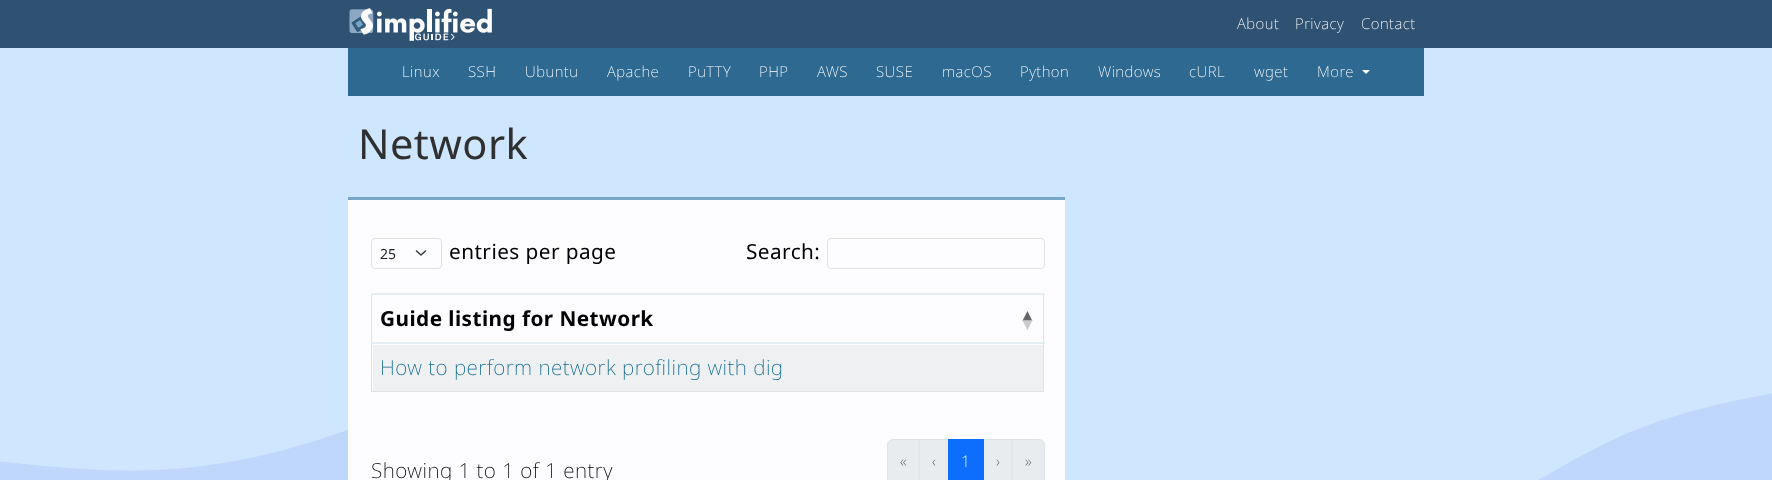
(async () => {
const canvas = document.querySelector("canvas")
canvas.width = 1772
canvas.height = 480
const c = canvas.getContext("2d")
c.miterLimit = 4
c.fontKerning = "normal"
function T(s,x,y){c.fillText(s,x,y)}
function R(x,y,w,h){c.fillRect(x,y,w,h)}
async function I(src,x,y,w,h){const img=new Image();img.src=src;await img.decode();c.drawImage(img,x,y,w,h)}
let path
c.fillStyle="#fff"
R(0,0,1772,480)
await I("1.png",0,48,1772,432)
c.fillStyle="#2f5272"
R(0,0,1772,48)
await I("2.png",349,8,143,33)
c.letterSpacing="0.45px"
c.font="200 15px Noto Sans"
c.fillStyle="#fff"
T("About",1237,29)
T("Privacy",1295,29)
T("Contact",1361,29)
c.fillStyle="#2d6991"
R(348,48,1076,48)
c.fillStyle="#fff"
T("Linux",402,77)
T("SSH",468,77)
T("Ubuntu",525,77)
T("Apache",607,77)
T("PuTTY",688,77)
T("PHP",759,77)
T("AWS",817,77)
T("SUSE",876,77)
T("macOS",942,77)
T("Python",1020,77)
T("Windows",1098,77)
T("cURL",1189,77)
T("wget",1254,77)
T("More",1317,77)
path = new Path2D("M1362 70h8l-4 4z")
c.fill(path)
c.font="41.5px Noto Sans"
c.fillStyle="#303030"
T("Network",358,159)
c.fillStyle="#fdfdff"
R(348,200,717,280)
c.fillStyle="#79a6c8"
R(348,197,717,3)
path = new Path2D("M416.5 251l4.5 4l4.5-4")
c.strokeStyle="#343a40"
c.lineWidth=1.5
c.lineCap="round"
c.lineJoin="round"
c.stroke(path)
c.beginPath()
c.roundRect(371.5,238.5,70,30,3.5)
c.strokeStyle="#dee2e6"
c.lineWidth=1
c.lineJoin="miter"
c.stroke()
c.letterSpacing="0px"
c.font="14px Noto Sans"
c.fillStyle="#212529"
T("25",380,259)
c.letterSpacing="0.45px"
c.font="20.75px Noto Sans"
c.fillStyle="#000"
T("entries per page",449,259)
T("Search:",746,259)
c.beginPath()
c.roundRect(827.5,238.5,217,30,3.5)
c.stroke()
c.fillStyle="#dee2e6"
R(371,391,673,1)
R(1043,293,1,99)
R(371,293,1,99)
c.fillStyle="#e4eef4"
R(371,293,674,2)
c.font="bold 20.75px Noto Sans"
c.fillStyle="#000"
T("Guide listing for Network",380,326)
c.font="bold 17px Liberation Sans"
c.fillStyle="#656566"
T("▲",1019,321)
c.fillStyle="#cbcbcc"
T("▼",1019,330)
c.fillStyle="#eef0f2"
R(373,345,670,46)
c.fillStyle="#e4eef4"
R(371,342,674,2)
c.font="200 20.75px Noto Sans"
c.fillStyle="#116c8f"
T("How to perform network profiling with dig",380,375)
c.fillStyle="#000"
T("Showing 1 to 1 of 1 entry",371,478)
c.fillStyle="#e9ecef"
path = new Path2D("M893 439.5h26.5v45h-26.5c-3 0-5.5-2.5-5.5-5.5v-34c0-3 2.5-5.5 5.5-5.5z")
c.fill(path)
c.stroke(path)
c.font="200 16px Noto Sans"
c.fillStyle="#53575b"
T("«",900,467)
c.fillStyle="#e9ecef"
c.beginPath()
c.rect(919.5,439.5,29,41)
c.fill()
c.stroke()
c.fillStyle="#53575b"
T("‹",932,467)
c.fillStyle="#e9ecef"
c.beginPath()
c.rect(983.5,439.5,29,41)
c.fill()
c.stroke()
c.fillStyle="#0d6efd"
R(948,439,36,41)
c.fillStyle="#fff"
T("1",961,467)
c.fillStyle="#53575b"
T("›",996,467)
c.fillStyle="#e9ecef"
path = new Path2D("M1012.5 439.5h26.5c3 0 5.5 2.5 5.5 5.5v34c0 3-2.5 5.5-5.5 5.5h-26.5z")
c.fill(path)
c.stroke(path)
c.fillStyle="#53575b"
T("»",1025,467)
})()
